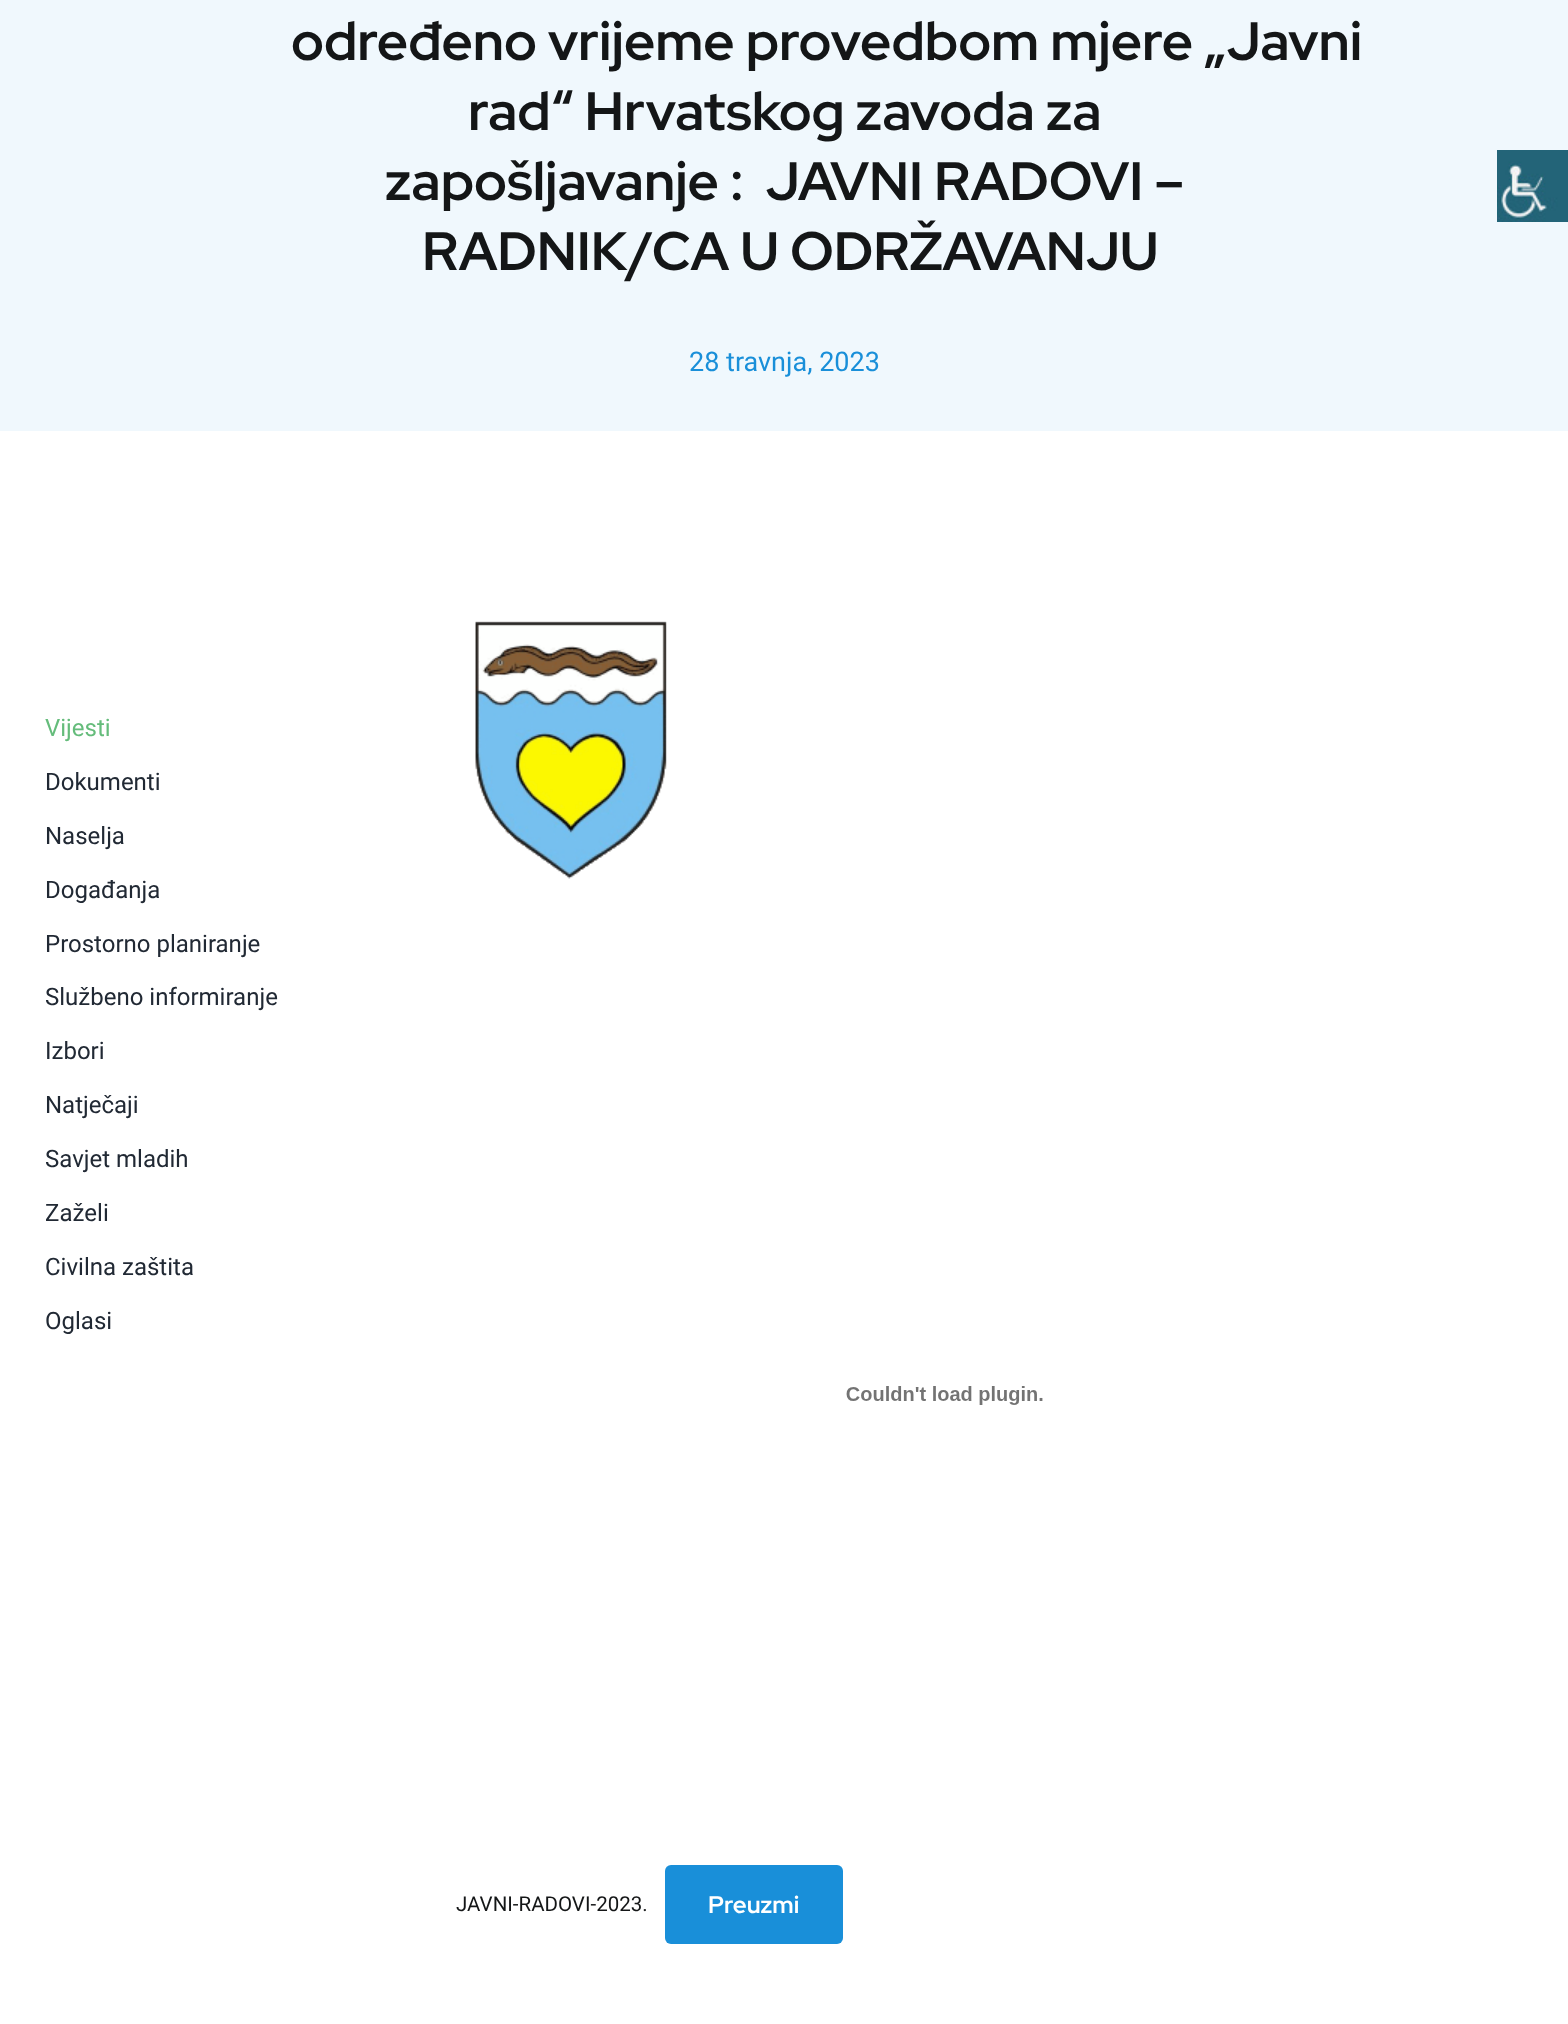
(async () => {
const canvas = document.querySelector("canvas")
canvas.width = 1568
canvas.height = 2024
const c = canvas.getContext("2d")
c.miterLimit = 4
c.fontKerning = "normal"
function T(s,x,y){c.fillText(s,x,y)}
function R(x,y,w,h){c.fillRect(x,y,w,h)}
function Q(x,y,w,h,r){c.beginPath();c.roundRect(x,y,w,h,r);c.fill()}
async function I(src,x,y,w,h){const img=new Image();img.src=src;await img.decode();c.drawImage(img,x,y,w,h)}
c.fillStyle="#fff"
R(0,0,1568,2024)
c.fillStyle="#f0f8fd"
R(0,0,1568,431)
c.font="bold 54px Red Hat Display"
c.fillStyle="#141617"
T("određeno vrijeme provedbom mjere „Javni",291,60)
T("rad“ Hrvatskog zavoda za",468,130)
T("zapošljavanje :  JAVNI RADOVI –",385,200)
T("RADNIK/CA U ODRŽAVANJU",422,270)
c.font="27px Roboto"
c.fillStyle="#198fd9"
T("28 travnja, 2023",689,371)
c.font="24px Roboto"
c.fillStyle="#65bc7b"
T("Vijesti",45,736)
c.fillStyle="#212934"
T("Dokumenti",45,790)
T("Naselja",45,844)
T("Događanja",45,898)
T("Prostorno planiranje",45,952)
T("Službeno informiranje",45,1005)
T("Izbori",45,1059)
T("Natječaji",45,1113)
T("Savjet mladih",45,1167)
T("Zaželi",45,1221)
T("Civilna zaštita",45,1275)
T("Oglasi",45,1329)
await I("1.png",475,621,192,258)
await I("2.png",846,1386,197,19)
c.font="20.5px Roboto"
c.fillStyle="#141617"
T("JAVNI-RADOVI-2023.",456,1911)
c.fillStyle="#198fd9"
Q(665,1865,178,79,6)
c.font="bold 24px Red Hat Display"
c.fillStyle="#fff"
T("Preuzmi",708,1913)
await I("3.png",1497,150,71,72)
})()
